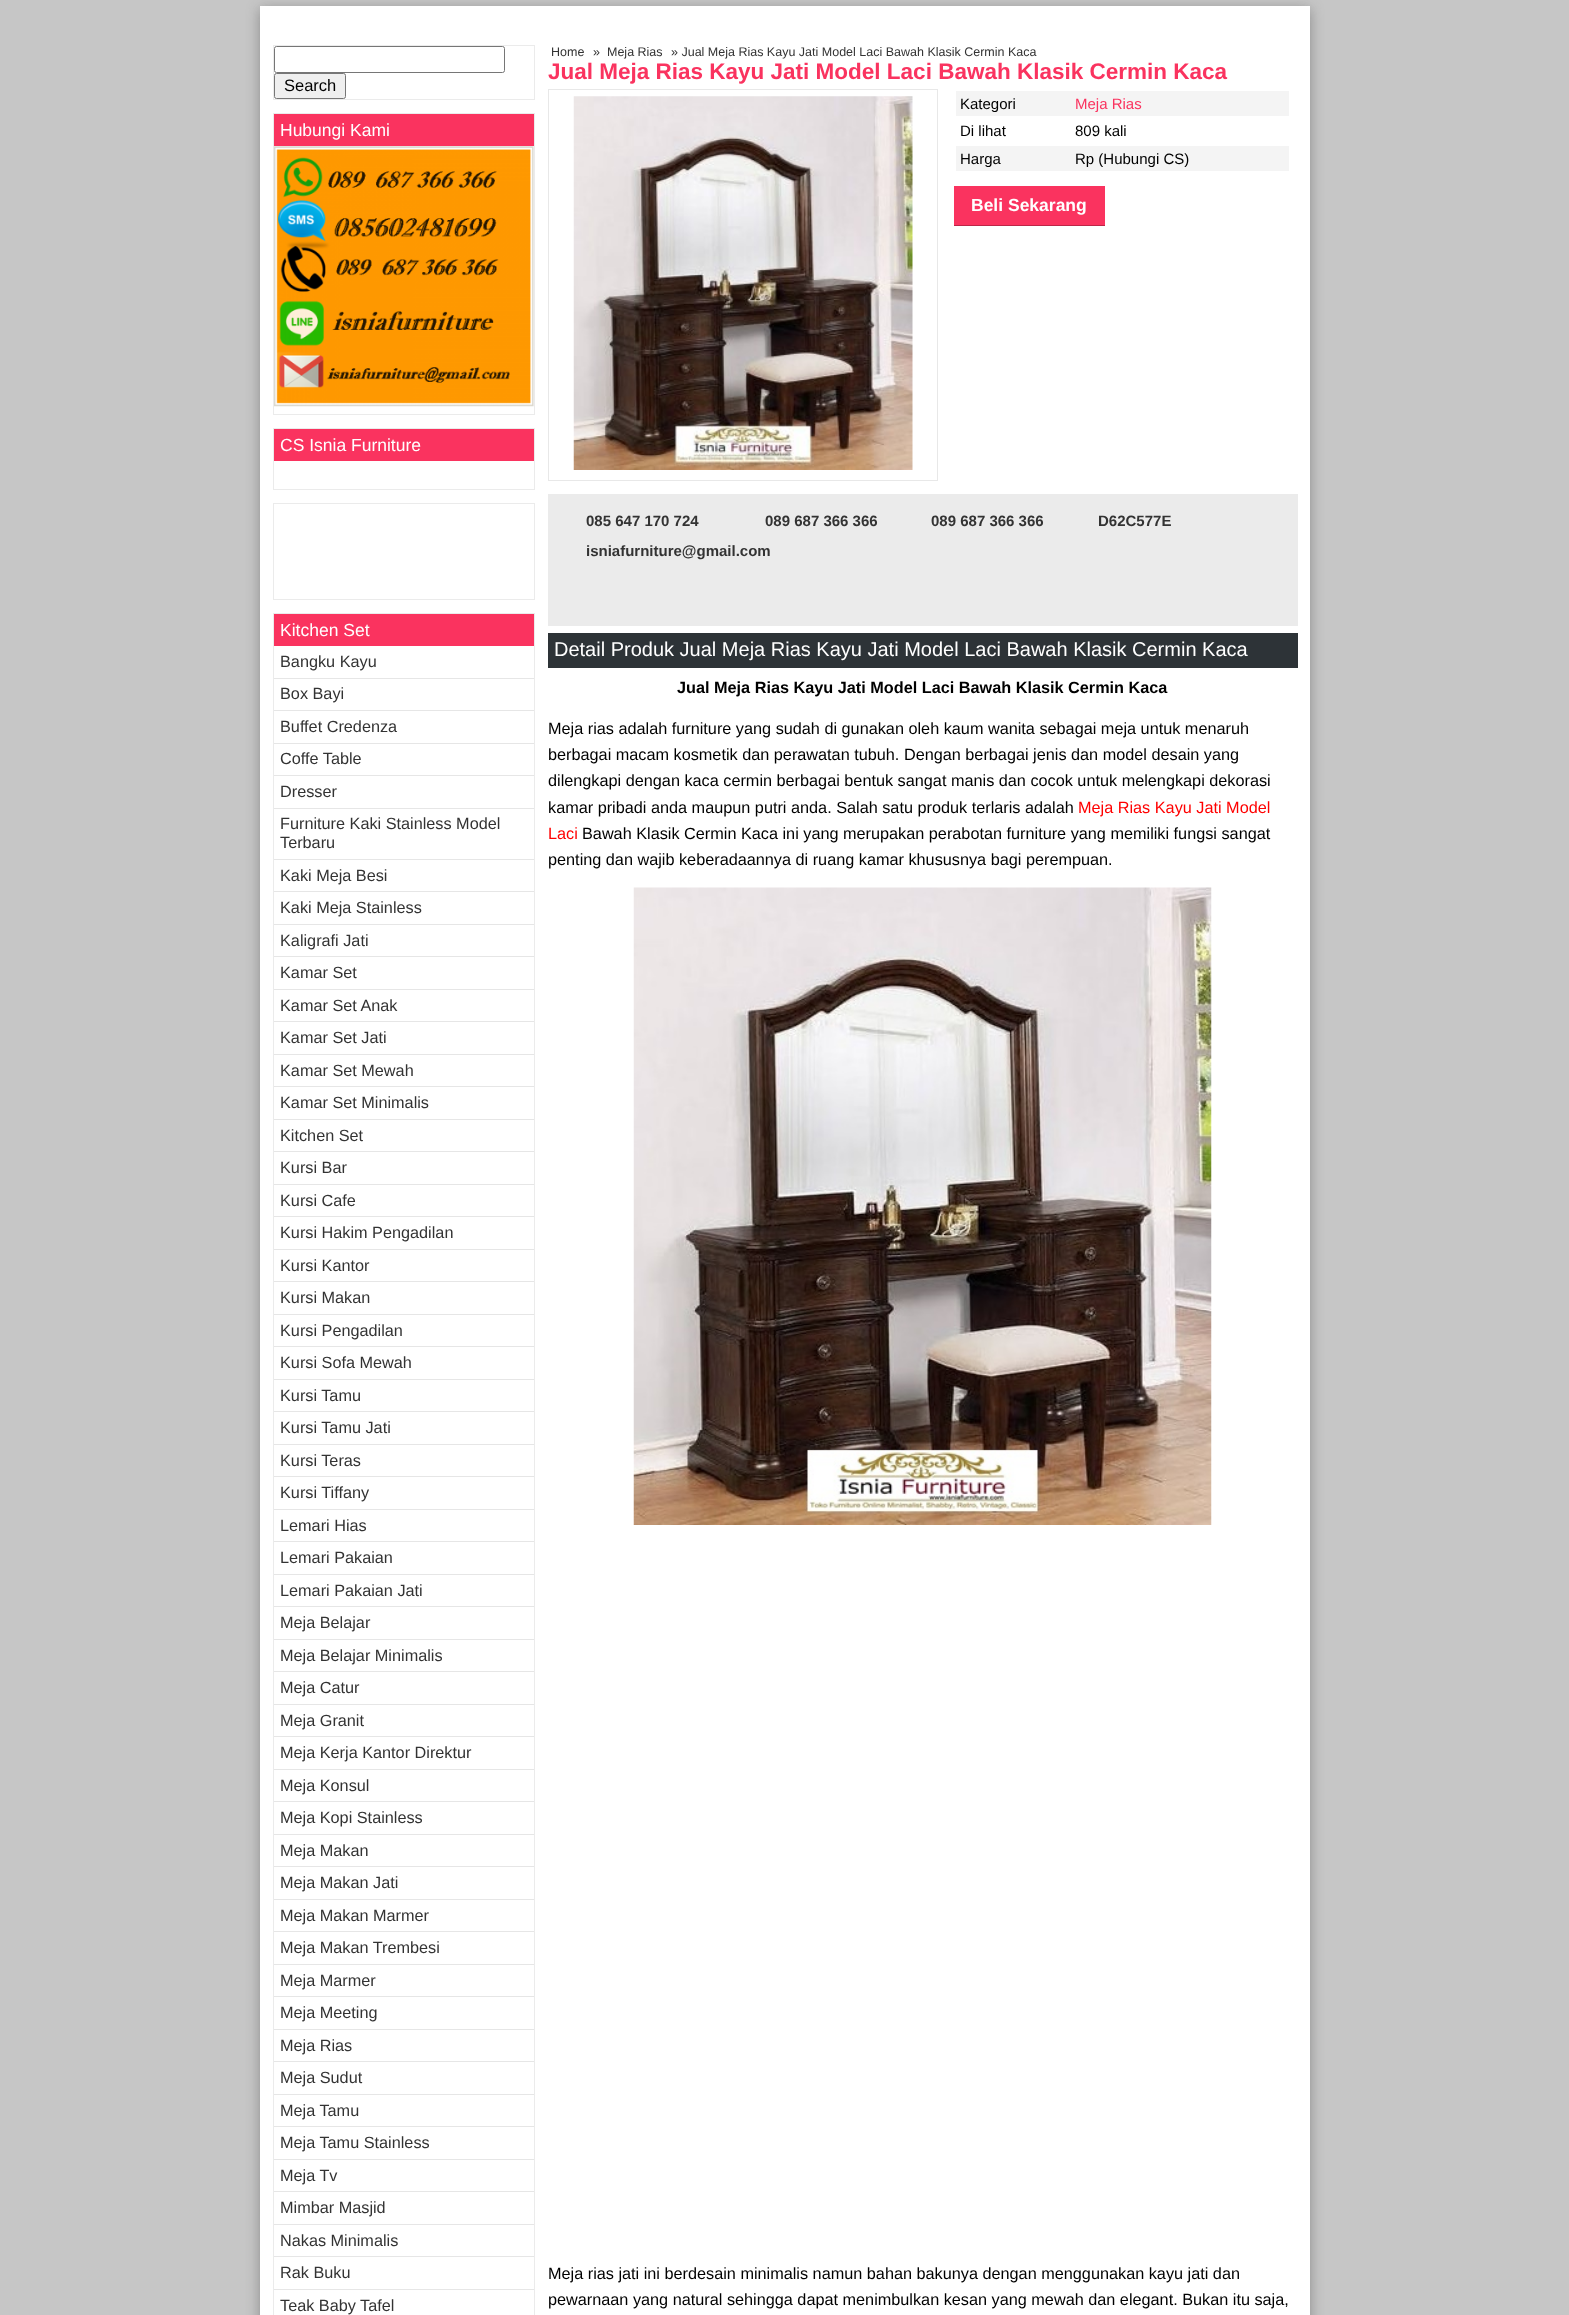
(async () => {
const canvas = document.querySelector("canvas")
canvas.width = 1569
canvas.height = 2315
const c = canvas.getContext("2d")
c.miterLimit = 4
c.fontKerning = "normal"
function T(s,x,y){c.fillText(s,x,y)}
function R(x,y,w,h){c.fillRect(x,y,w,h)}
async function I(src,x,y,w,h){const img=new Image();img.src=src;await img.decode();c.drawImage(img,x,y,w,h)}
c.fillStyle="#c6c6c6"
R(0,0,1569,2315)
c.fillStyle="#32323266"
c.filter="blur(7px)"
c.beginPath()
c.rect(260,9,1050,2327)
c.fill()
c.filter="none"
c.fillStyle="#fff"
R(260,6,1050,2309)
c.strokeStyle="#ebebeb"
c.strokeRect(273.5,45.5,261,54)
c.beginPath()
c.roundRect(274.5,46.5,230,26,2)
c.strokeStyle="#767676"
c.stroke()
c.fillStyle="#efefef"
c.beginPath()
c.roundRect(274.5,73.5,71,25,2)
c.fill()
c.stroke()
c.font="16.5px Liberation Sans"
c.fillStyle="#000"
T("Search",284,91)
c.strokeStyle="#ebebeb"
c.strokeRect(273.5,113.5,261,301)
c.fillStyle="#fa335f"
R(274,114,260,32)
c.font="17.5px Liberation Sans"
c.fillStyle="#fff"
T("Hubungi Kami",280,136)
await I("1.png",274,146,260,261)
c.strokeRect(273.5,428.5,261,61)
c.fillStyle="#fa335f"
R(274,429,260,32)
c.fillStyle="#fff"
T("CS Isnia Furniture",280,451)
c.strokeRect(273.5,503.5,261,96)
c.strokeRect(273.5,613.5,261,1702)
c.fillStyle="#fa335f"
R(274,614,260,32)
c.fillStyle="#fff"
T("Kitchen Set",280,636)
c.fillStyle="#e6e6e6"
R(274,678,260,1)
c.font="16.25px Liberation Sans"
c.fillStyle="#333"
T("Bangku Kayu",280,667)
c.fillStyle="#e6e6e6"
R(274,710,260,1)
c.fillStyle="#333"
T("Box Bayi",280,699)
c.fillStyle="#e6e6e6"
R(274,743,260,1)
c.fillStyle="#333"
T("Buffet Credenza",280,732)
c.fillStyle="#e6e6e6"
R(274,775,260,1)
c.fillStyle="#333"
T("Coffe Table",280,764)
c.fillStyle="#e6e6e6"
R(274,808,260,1)
c.fillStyle="#333"
T("Dresser",280,797)
c.fillStyle="#e6e6e6"
R(274,859,260,1)
c.fillStyle="#333"
T("Furniture Kaki Stainless Model",280,829)
T("Terbaru",280,848)
c.fillStyle="#e6e6e6"
R(274,891,260,1)
c.fillStyle="#333"
T("Kaki Meja Besi",280,881)
c.fillStyle="#e6e6e6"
R(274,924,260,1)
c.fillStyle="#333"
T("Kaki Meja Stainless",280,913)
c.fillStyle="#e6e6e6"
R(274,956,260,1)
c.fillStyle="#333"
T("Kaligrafi Jati",280,946)
c.fillStyle="#e6e6e6"
R(274,989,260,1)
c.fillStyle="#333"
T("Kamar Set",280,978)
c.fillStyle="#e6e6e6"
R(274,1021,260,1)
c.fillStyle="#333"
T("Kamar Set Anak",280,1011)
c.fillStyle="#e6e6e6"
R(274,1054,260,1)
c.fillStyle="#333"
T("Kamar Set Jati",280,1043)
c.fillStyle="#e6e6e6"
R(274,1086,260,1)
c.fillStyle="#333"
T("Kamar Set Mewah",280,1076)
c.fillStyle="#e6e6e6"
R(274,1119,260,1)
c.fillStyle="#333"
T("Kamar Set Minimalis",280,1108)
c.fillStyle="#e6e6e6"
R(274,1151,260,1)
c.fillStyle="#333"
T("Kitchen Set",280,1141)
c.fillStyle="#e6e6e6"
R(274,1184,260,1)
c.fillStyle="#333"
T("Kursi Bar",280,1173)
c.fillStyle="#e6e6e6"
R(274,1216,260,1)
c.fillStyle="#333"
T("Kursi Cafe",280,1206)
c.fillStyle="#e6e6e6"
R(274,1249,260,1)
c.fillStyle="#333"
T("Kursi Hakim Pengadilan",280,1238)
c.fillStyle="#e6e6e6"
R(274,1281,260,1)
c.fillStyle="#333"
T("Kursi Kantor",280,1271)
c.fillStyle="#e6e6e6"
R(274,1314,260,1)
c.fillStyle="#333"
T("Kursi Makan",280,1303)
c.fillStyle="#e6e6e6"
R(274,1346,260,1)
c.fillStyle="#333"
T("Kursi Pengadilan",280,1336)
c.fillStyle="#e6e6e6"
R(274,1379,260,1)
c.fillStyle="#333"
T("Kursi Sofa Mewah",280,1368)
c.fillStyle="#e6e6e6"
R(274,1411,260,1)
c.fillStyle="#333"
T("Kursi Tamu",280,1401)
c.fillStyle="#e6e6e6"
R(274,1444,260,1)
c.fillStyle="#333"
T("Kursi Tamu Jati",280,1433)
c.fillStyle="#e6e6e6"
R(274,1476,260,1)
c.fillStyle="#333"
T("Kursi Teras",280,1466)
c.fillStyle="#e6e6e6"
R(274,1509,260,1)
c.fillStyle="#333"
T("Kursi Tiffany",280,1498)
c.fillStyle="#e6e6e6"
R(274,1541,260,1)
c.fillStyle="#333"
T("Lemari Hias",280,1531)
c.fillStyle="#e6e6e6"
R(274,1574,260,1)
c.fillStyle="#333"
T("Lemari Pakaian",280,1563)
c.fillStyle="#e6e6e6"
R(274,1606,260,1)
c.fillStyle="#333"
T("Lemari Pakaian Jati",280,1596)
c.fillStyle="#e6e6e6"
R(274,1639,260,1)
c.fillStyle="#333"
T("Meja Belajar",280,1628)
c.fillStyle="#e6e6e6"
R(274,1671,260,1)
c.fillStyle="#333"
T("Meja Belajar Minimalis",280,1661)
c.fillStyle="#e6e6e6"
R(274,1704,260,1)
c.fillStyle="#333"
T("Meja Catur",280,1693)
c.fillStyle="#e6e6e6"
R(274,1736,260,1)
c.fillStyle="#333"
T("Meja Granit",280,1726)
c.fillStyle="#e6e6e6"
R(274,1769,260,1)
c.fillStyle="#333"
T("Meja Kerja Kantor Direktur",280,1758)
c.fillStyle="#e6e6e6"
R(274,1801,260,1)
c.fillStyle="#333"
T("Meja Konsul",280,1791)
c.fillStyle="#e6e6e6"
R(274,1834,260,1)
c.fillStyle="#333"
T("Meja Kopi Stainless",280,1823)
c.fillStyle="#e6e6e6"
R(274,1866,260,1)
c.fillStyle="#333"
T("Meja Makan",280,1856)
c.fillStyle="#e6e6e6"
R(274,1899,260,1)
c.fillStyle="#333"
T("Meja Makan Jati",280,1888)
c.fillStyle="#e6e6e6"
R(274,1931,260,1)
c.fillStyle="#333"
T("Meja Makan Marmer",280,1921)
c.fillStyle="#e6e6e6"
R(274,1964,260,1)
c.fillStyle="#333"
T("Meja Makan Trembesi",280,1953)
c.fillStyle="#e6e6e6"
R(274,1996,260,1)
c.fillStyle="#333"
T("Meja Marmer",280,1986)
c.fillStyle="#e6e6e6"
R(274,2029,260,1)
c.fillStyle="#333"
T("Meja Meeting",280,2018)
c.fillStyle="#e6e6e6"
R(274,2061,260,1)
c.fillStyle="#333"
T("Meja Rias",280,2051)
c.fillStyle="#e6e6e6"
R(274,2094,260,1)
c.fillStyle="#333"
T("Meja Sudut",280,2083)
c.fillStyle="#e6e6e6"
R(274,2126,260,1)
c.fillStyle="#333"
T("Meja Tamu",280,2116)
c.fillStyle="#e6e6e6"
R(274,2159,260,1)
c.fillStyle="#333"
T("Meja Tamu Stainless",280,2148)
c.fillStyle="#e6e6e6"
R(274,2191,260,1)
c.fillStyle="#333"
T("Meja Tv",280,2181)
c.fillStyle="#e6e6e6"
R(274,2224,260,1)
c.fillStyle="#333"
T("Mimbar Masjid",280,2213)
c.fillStyle="#e6e6e6"
R(274,2256,260,1)
c.fillStyle="#333"
T("Nakas Minimalis",280,2246)
c.fillStyle="#e6e6e6"
R(274,2289,260,1)
c.fillStyle="#333"
T("Rak Buku",280,2278)
T("Teak Baby Tafel",280,2311)
c.font="12.5px Liberation Sans"
T("Home",551,56)
T("»",593,56)
T("Meja Rias",607,56)
T("» Jual Meja Rias Kayu Jati Model Laci Bawah Klasik Cermin Kaca",671,56)
c.font="bold 22.5px Liberation Sans"
c.fillStyle="#fa335f"
T("Jual Meja Rias Kayu Jati Model Laci Bawah Klasik Cermin Kaca",548,79)
c.strokeStyle="#e8e8e8"
c.strokeRect(548.5,89.5,389,391)
await I("2.png",573,96,340,374)
c.fillStyle="#f4f4f4"
R(956,91,333,25)
c.font="15px Liberation Sans"
c.fillStyle="#000"
T("Kategori",960,109)
c.fillStyle="#fa335f"
T("Meja Rias",1075,109)
c.fillStyle="#000"
T("Di lihat",960,136)
T("809 kali",1075,136)
c.fillStyle="#f4f4f4"
R(956,146,333,25)
c.fillStyle="#000"
T("Harga",960,164)
T("Rp (Hubungi CS)",1075,164)
c.fillStyle="#fa335f"
R(954,186,151,39)
c.fillStyle="#bc2647"
R(954,225,151,1)
c.font="bold 17.5px Liberation Sans"
c.fillStyle="#fff"
T("Beli Sekarang",971,211)
c.fillStyle="#ebebeb"
R(548,494,750,132)
c.font="bold 15px Liberation Sans"
c.fillStyle="#333"
T("085 647 170 724",586,526)
T("089 687 366 366",765,526)
T("089 687 366 366",931,526)
T("D62C577E",1098,526)
T("isniafurniture@gmail.com",586,556)
c.fillStyle="#2d3337"
R(548,633,750,35)
c.font="20px Liberation Sans"
c.fillStyle="#fff"
T("Detail Produk Jual Meja Rias Kayu Jati Model Laci Bawah Klasik Cermin Kaca",554,656)
c.font="bold 16.25px Liberation Sans"
c.fillStyle="#000"
T("Jual Meja Rias Kayu Jati Model Laci Bawah Klasik Cermin Kaca",677,693)
c.font="16.25px Liberation Sans"
T("Meja rias adalah furniture yang sudah di gunakan oleh kaum wanita sebagai meja untuk menaruh",548,734)
T("berbagai macam kosmetik dan perawatan tubuh. Dengan berbagai jenis dan model desain yang",548,760)
T("dilengkapi dengan kaca cermin berbagai bentuk sangat manis dan cocok untuk melengkapi dekorasi",548,786)
T("kamar pribadi anda maupun putri anda. Salah satu produk terlaris adalah",548,813)
c.fillStyle="#f00"
T("Meja Rias Kayu Jati Model",1078,813)
T("Laci",548,839)
c.fillStyle="#000"
T("Bawah Klasik Cermin Kaca ini yang merupakan perabotan furniture yang memiliki fungsi sangat",582,839)
T("penting dan wajib keberadaannya di ruang kamar khususnya bagi perempuan.",548,865)
await I("3.png",633,887,579,638)
T("Meja rias jati ini berdesain minimalis namun bahan bakunya dengan menggunakan kayu jati dan",548,2279)
T("pewarnaan yang natural sehingga dapat menimbulkan kesan yang mewah dan elegant. Bukan itu saja,",548,2305)
})()
